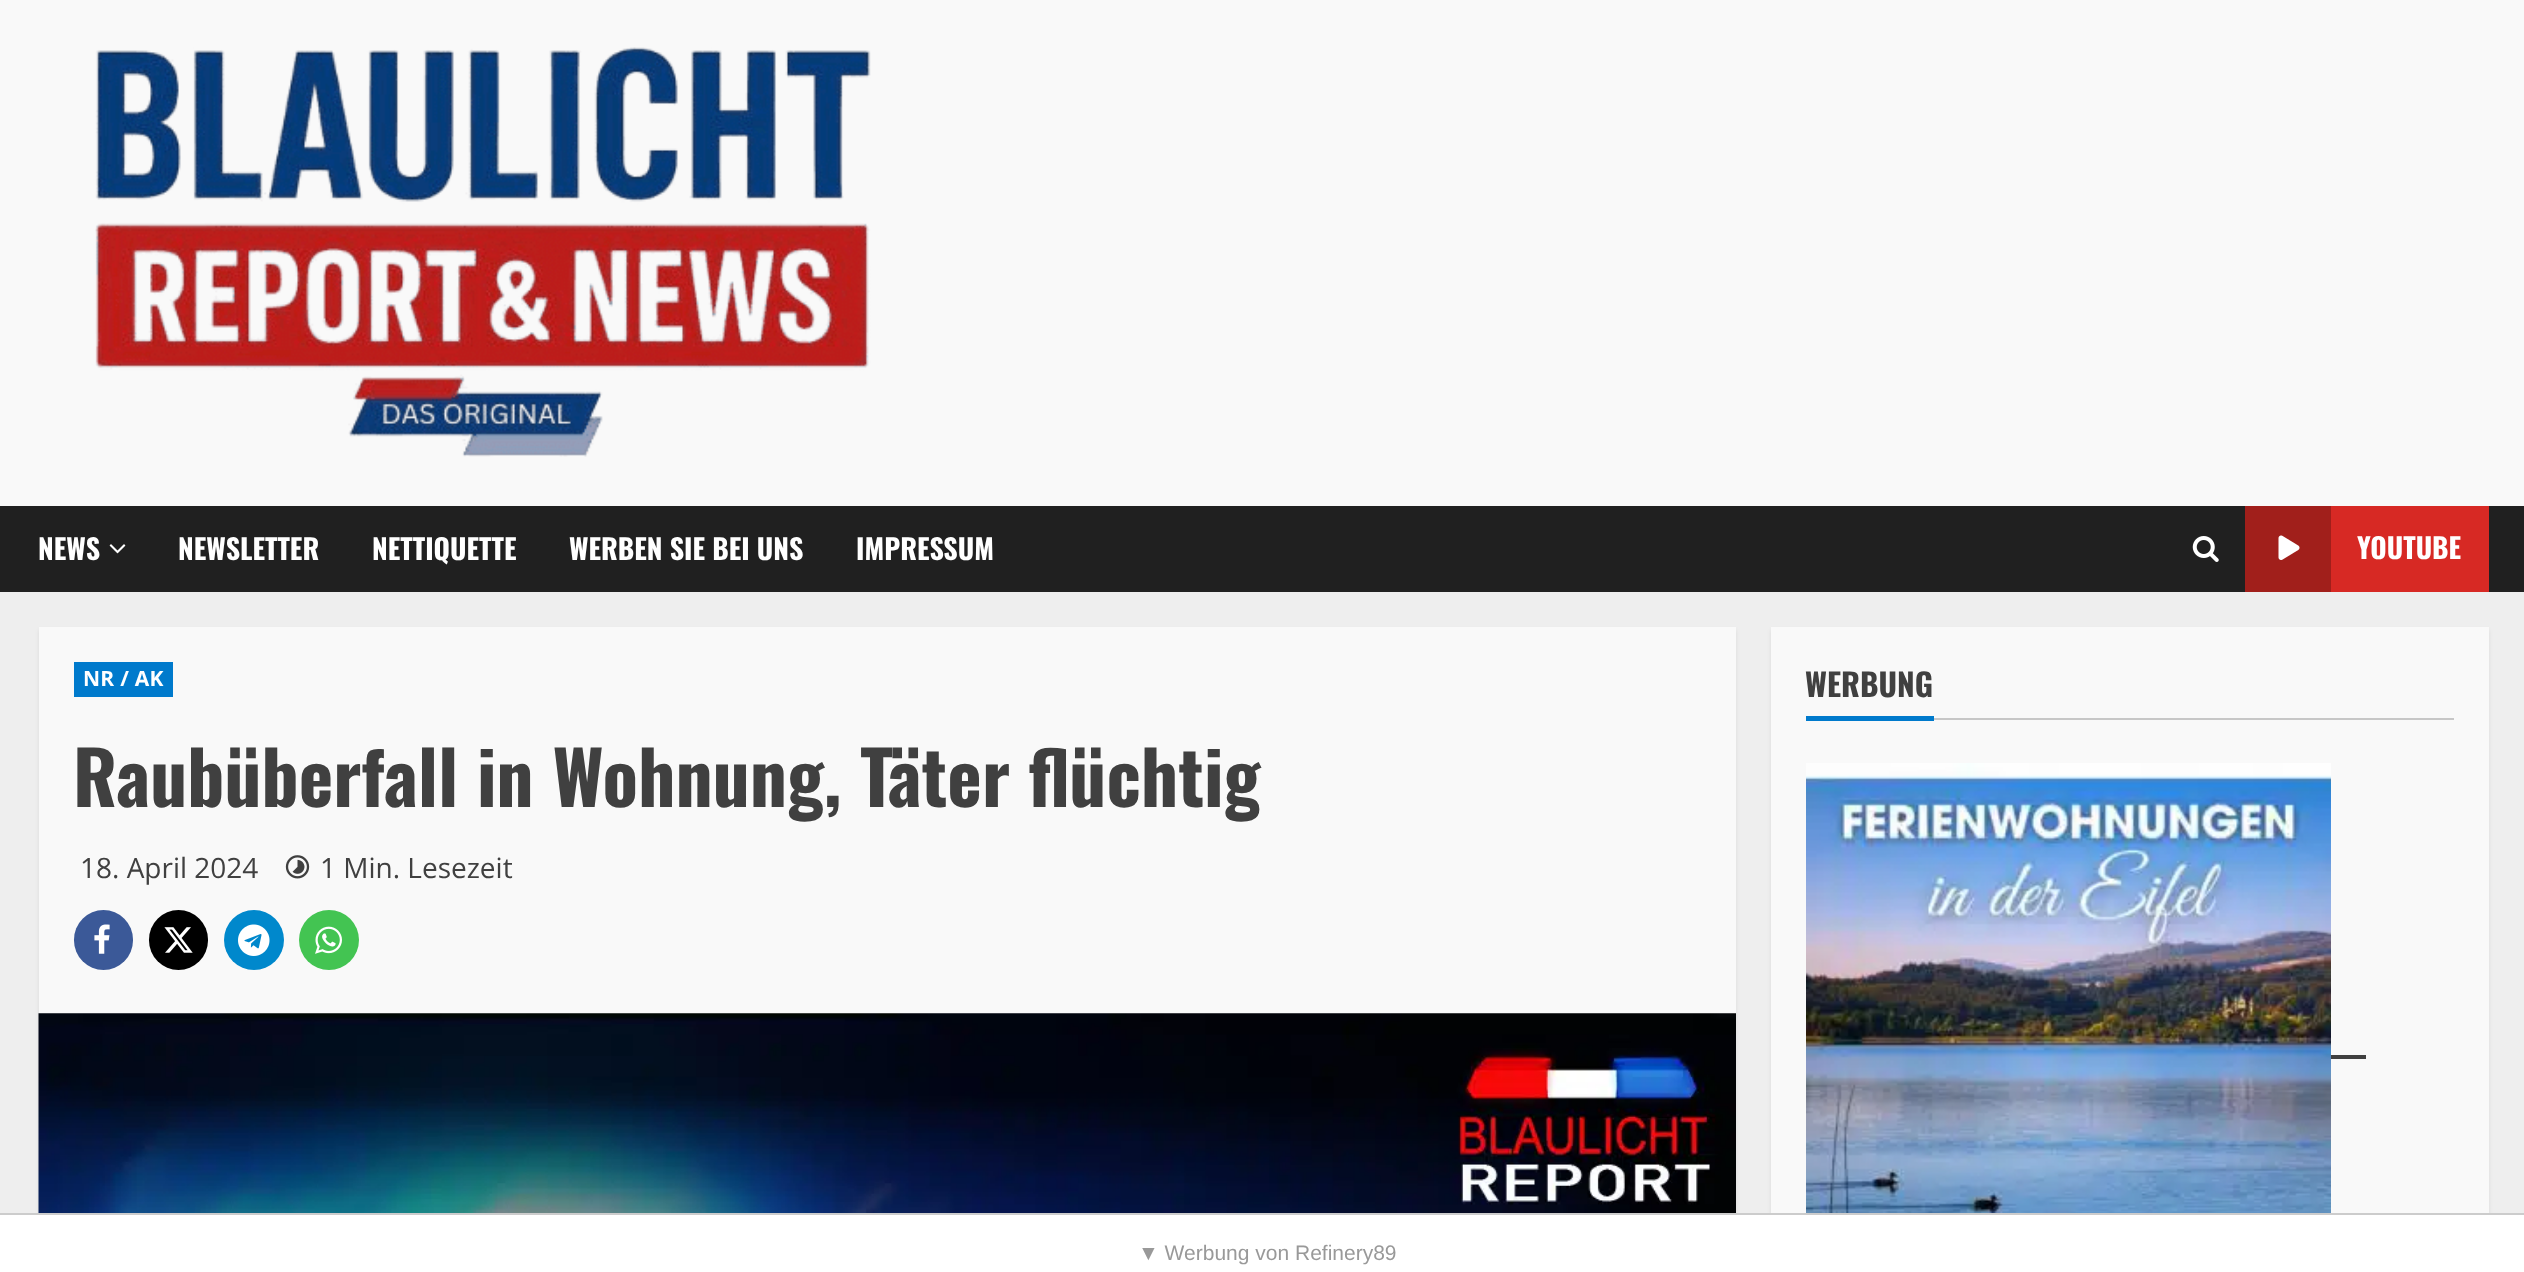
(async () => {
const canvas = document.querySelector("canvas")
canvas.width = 2524
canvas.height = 1272
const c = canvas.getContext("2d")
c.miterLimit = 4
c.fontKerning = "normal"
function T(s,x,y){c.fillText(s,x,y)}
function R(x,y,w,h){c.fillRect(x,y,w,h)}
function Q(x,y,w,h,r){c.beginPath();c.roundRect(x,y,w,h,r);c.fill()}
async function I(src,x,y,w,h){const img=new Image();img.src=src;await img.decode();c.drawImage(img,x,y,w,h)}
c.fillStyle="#eee"
R(0,0,2524,1272)
c.fillStyle="#f9f9f9"
R(0,0,2524,506)
await I("1.png",95,47,776,410)
c.fillStyle="#202020"
R(0,506,2524,86)
c.font="bold 28px Oswald"
c.fillStyle="#fff"
T("NEWS",38,560)
await I("2.png",109,544,17,10)
T("NEWSLETTER",178,560)
T("NETTIQUETTE",372,560)
T("WERBEN SIE BEI UNS",569,560)
T("IMPRESSUM",856,560)
await I("3.png",2192,536,27,26)
c.fillStyle="#d72924"
R(2331,506,158,86)
c.fillStyle="#a11f1b"
R(2245,506,86,86)
await I("4.png",2278,535,22,25)
c.fillStyle="#fff"
T("YOUTUBE",2357,559)
c.fillStyle="#00000014"
c.filter="blur(2px)"
c.beginPath()
c.rect(39,630,1697,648)
c.fill()
c.filter="none"
c.fillStyle="#f9f9f9"
R(39,627,1697,387)
c.fillStyle="#007acc"
R(74,662,99,35)
c.letterSpacing="0.25px"
c.font="bold 21px Open Sans"
c.fillStyle="#fff"
T("NR / AK",83,686)
c.letterSpacing="0px"
c.font="bold 73.5px Oswald"
c.fillStyle="#404040"
T("Raubüberfall in Wohnung, Täter flüchtig",73,807)
c.font="28px Open Sans"
T("18. April 2024",80,878)
await I("5.png",285,855,25,24)
T("1 Min. Lesezeit",320,878)
c.fillStyle="#3b5998"
Q(74,910,59,60,29.5)
await I("6.png",94,924,16,30)
c.fillStyle="#000"
Q(149,910,59,60,29.5)
await I("7.png",164,927,29,26)
c.fillStyle="#08c"
c.beginPath()
c.arc(254,940,30,0,7)
c.fill()
await I("8.png",238,924,32,32)
c.fillStyle="#43c452"
c.beginPath()
c.arc(329,940,30,0,7)
c.fill()
await I("9.png",315,926,27,28)
await I("10.png",38,1013,1698,200)
c.fillStyle="#00000014"
c.filter="blur(2px)"
c.beginPath()
c.rect(1771,630,718,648)
c.fill()
c.filter="none"
c.fillStyle="#f9f9f9"
R(1771,627,718,586)
c.fillStyle="#c7c7c7"
R(1934,718,520,2)
c.font="bold 31.5px Oswald"
c.fillStyle="#404040"
T("WERBUNG",1805,697)
c.fillStyle="#007acc"
R(1806,716,128,5)
await I("11.png",1806,763,525,450)
c.fillStyle="#404040"
R(2331,1055,35,4)
c.fillStyle="#fff"
R(0,1215,2524,57)
c.fillStyle="#ccc"
R(0,1213,2524,2)
c.font="21px Liberation Sans"
c.fillStyle="#999"
T("▼ Werbung von Refinery89",1138,1260)
})()
